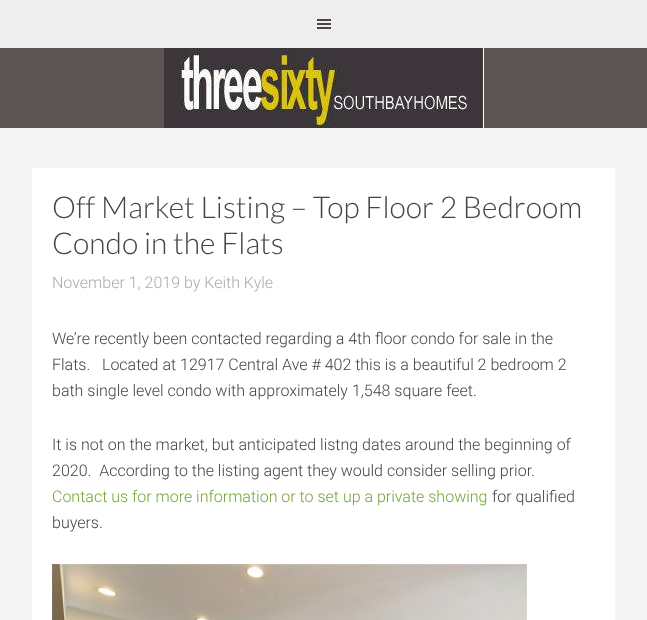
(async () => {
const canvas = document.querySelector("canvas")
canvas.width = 647
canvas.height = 620
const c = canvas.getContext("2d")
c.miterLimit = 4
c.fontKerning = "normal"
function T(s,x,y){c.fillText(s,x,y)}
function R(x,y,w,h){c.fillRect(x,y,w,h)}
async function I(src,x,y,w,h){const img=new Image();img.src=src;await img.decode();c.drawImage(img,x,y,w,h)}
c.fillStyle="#eee"
R(0,0,647,620)
await I("1.png",317,19,14,10)
c.fillStyle="#5b5554"
R(0,48,647,80)
await I("2.png",164,48,320,80)
c.fillStyle="#f5f5f5"
R(0,128,647,492)
c.fillStyle="#fff"
R(32,168,583,452)
c.font="300 30px Lato"
c.fillStyle="#494241"
T("Off Market Listing – Top Floor 2 Bedroom",52,218)
T("Condo in the Flats",52,254)
c.font="300 16px Roboto"
c.fillStyle="#aaa"
T("November 1, 2019 by Keith Kyle",52,288)
c.fillStyle="#494241"
T("We’re recently been contacted regarding a 4th floor condo for sale in the",52,344)
T("Flats.   Located at 12917 Central Ave # 402 this is a beautiful 2 bedroom 2",52,370)
T("bath single level condo with approximately 1,548 square feet.",52,396)
T("It is not on the market, but anticipated listng dates around the beginning of",52,450)
T("2020.  According to the listing agent they would consider selling prior.",52,476)
c.fillStyle="#74a534"
T("Contact us for more information or to set up a private showing",52,502)
c.fillStyle="#494241"
T("for qualified",492,502)
T("buyers.",52,528)
await I("3.png",52,564,475,56)
})()
